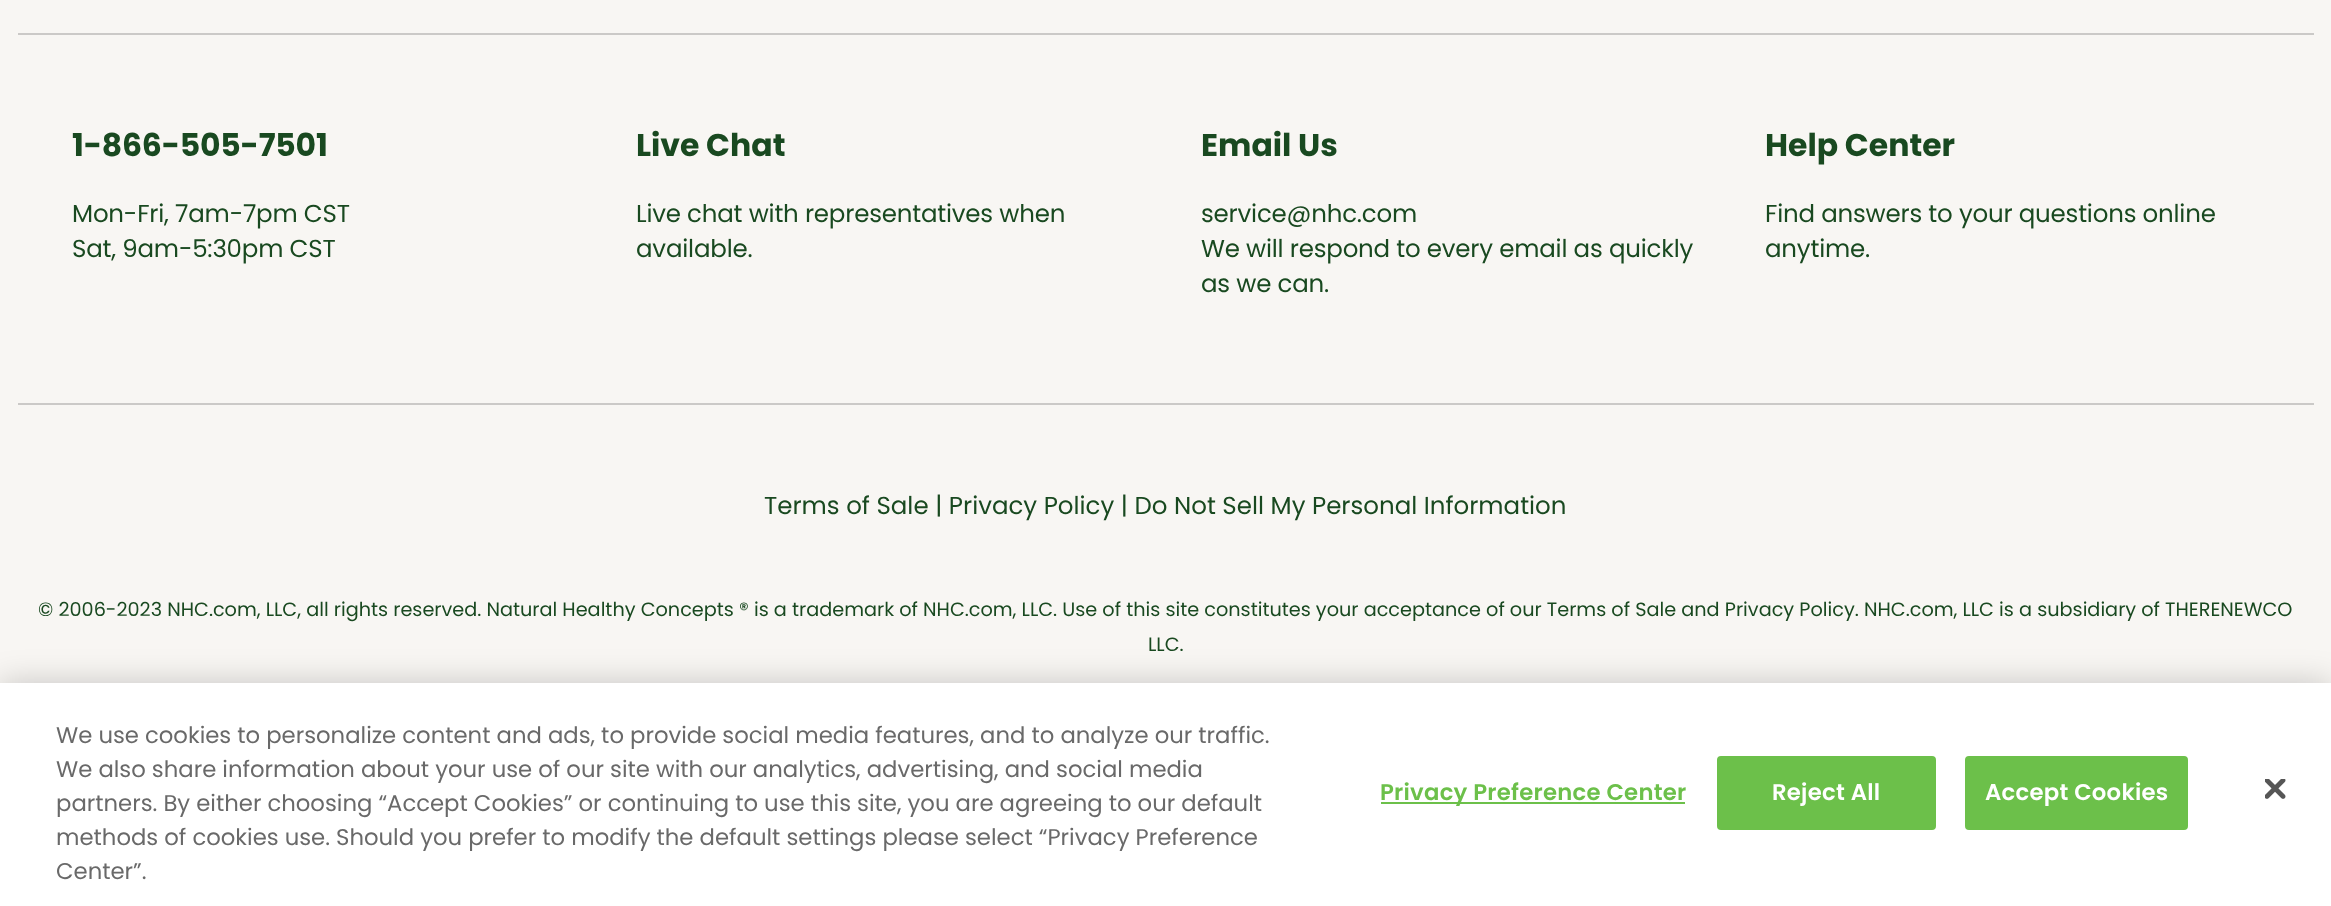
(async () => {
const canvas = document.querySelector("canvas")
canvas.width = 2331
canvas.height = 906
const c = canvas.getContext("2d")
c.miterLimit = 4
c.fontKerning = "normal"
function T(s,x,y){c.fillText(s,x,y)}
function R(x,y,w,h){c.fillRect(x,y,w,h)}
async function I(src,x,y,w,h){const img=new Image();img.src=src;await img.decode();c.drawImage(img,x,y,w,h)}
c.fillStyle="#f8f6f3"
R(0,0,2331,906)
c.fillStyle="#cbc9c7"
R(18,33,2296,2)
c.letterSpacing="-0.2px"
c.font="bold 31.5px Poppins"
c.fillStyle="#194920"
T("1-866-505-7501",72,156)
c.font="24.5px Poppins"
T("Mon-Fri, 7am-7pm CST",72,222)
T("Sat, 9am-5:30pm CST",72,257)
c.letterSpacing="0px"
c.font="bold 31.5px Poppins"
T("Live Chat",636,156)
c.letterSpacing="-0.2px"
c.font="24.5px Poppins"
T("Live chat with representatives when",636,222)
T("available.",636,257)
c.letterSpacing="0px"
c.font="bold 31.5px Poppins"
T("Email Us",1201,156)
c.letterSpacing="-0.2px"
c.font="24.5px Poppins"
T("service@nhc.com",1201,222)
T("We will respond to every email as quickly",1201,257)
T("as we can.",1201,292)
c.letterSpacing="0px"
c.font="bold 31.5px Poppins"
T("Help Center",1765,156)
c.letterSpacing="-0.2px"
c.font="24.5px Poppins"
T("Find answers to your questions online",1765,222)
T("anytime.",1765,257)
c.fillStyle="#cbc9c7"
R(18,403,2296,2)
c.letterSpacing="0px"
c.fillStyle="#194920"
T("Terms of Sale | Privacy Policy | Do Not Sell My Personal Information",764,514)
c.font="19.25px Poppins"
T("© 2006-2023 NHC.com, LLC, all rights reserved. Natural Healthy Concepts ® is a trademark of NHC.com, LLC. Use of this site constitutes your acceptance of our Terms of Sale and Privacy Policy. NHC.com, LLC is a subsidiary of THERENEWCO",38,616)
T("LLC.",1148,651)
c.fillStyle="#00000033"
c.filter="blur(16px)"
c.beginPath()
c.rect(0,683,2331,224)
c.fill()
c.filter="none"
c.fillStyle="#fff"
R(0,683,2331,223)
c.font="22.75px Poppins"
c.fillStyle="#696969"
T("We use cookies to personalize content and ads, to provide social media features, and to analyze our traffic.",56,743)
T("We also share information about your use of our site with our analytics, advertising, and social media",56,777)
T("partners. By either choosing “Accept Cookies” or continuing to use this site, you are agreeing to our default",56,811)
T("methods of cookies use. Should you prefer to modify the default settings please select “Privacy Preference",56,845)
T("Center”.",56,879)
c.fillStyle="#6cc04a"
R(1381,802,304,2)
c.letterSpacing="0.25px"
c.font="600 22.75px Poppins"
T("Privacy Preference Center",1380,800)
c.beginPath()
c.roundRect(1718,757,217,72,3)
c.fill()
c.strokeStyle="#6cc04a"
c.lineWidth=2
c.stroke()
c.fillStyle="#fff"
T("Reject All",1772,800)
c.fillStyle="#6cc04a"
c.beginPath()
c.roundRect(1966,757,221,72,3)
c.fill()
c.stroke()
c.fillStyle="#fff"
T("Accept Cookies",1985,800)
await I("1.png",2265,779,21,20)
})()
